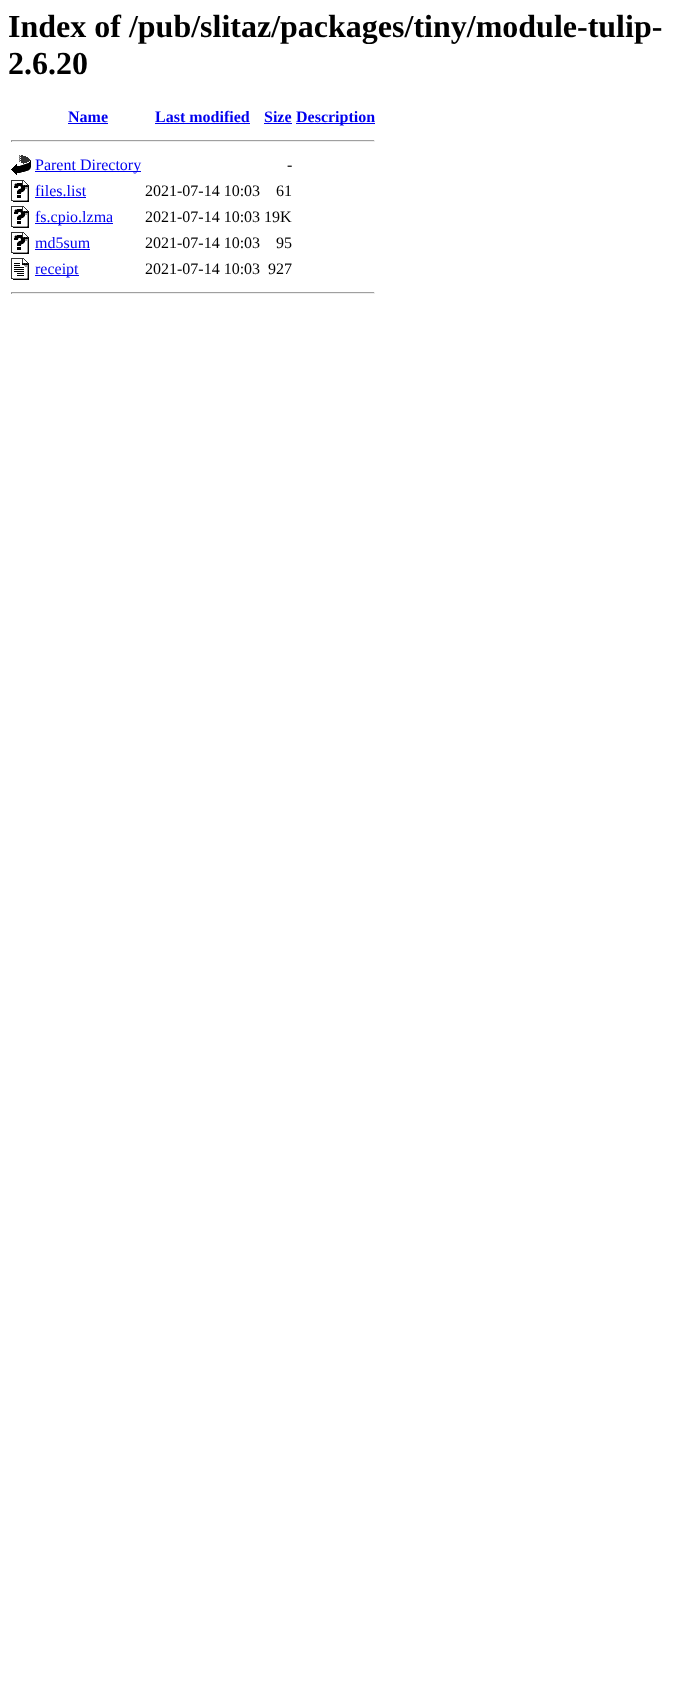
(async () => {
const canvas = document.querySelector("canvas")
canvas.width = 678
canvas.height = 1706
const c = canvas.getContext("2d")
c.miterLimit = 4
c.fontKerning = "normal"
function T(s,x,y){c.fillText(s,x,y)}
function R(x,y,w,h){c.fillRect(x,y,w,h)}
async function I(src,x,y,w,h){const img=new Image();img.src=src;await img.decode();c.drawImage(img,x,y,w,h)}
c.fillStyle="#fff"
R(0,0,678,1706)
c.font="bold 32px Liberation Serif"
c.fillStyle="#000"
T("Index of /pub/slitaz/packages/tiny/module-tulip-",8,37)
T("2.6.20",8,74)
c.font="bold 16px Liberation Serif"
c.fillStyle="#00e"
T("Name",68,122)
R(68,123,40,1)
T("Last modified",155,122)
R(155,123,95,1)
T("Size",264,122)
R(264,123,28,1)
R(296,123,79,1)
T("Description",296,122)
c.fillStyle="#9f9f9f"
R(11,140,364,1)
c.fillStyle="#eee"
R(374,140,1,2)
R(11,141,364,1)
c.fillStyle="#9f9f9f"
R(11,140,1,2)
await I("1.png",11,155,20,20)
c.fillStyle="#00e"
R(35,171,106,1)
c.font="16px Liberation Serif"
T("Parent Directory",35,170)
c.fillStyle="#000"
T("-",287,170)
await I("2.png",11,180,18,22)
c.fillStyle="#00e"
T("files.list",35,196)
R(35,197,51,1)
c.fillStyle="#000"
T("2021-07-14 10:03",145,196)
T("61",276,196)
await I("2.png",11,206,18,22)
c.fillStyle="#00e"
R(35,223,78,1)
T("fs.cpio.lzma",35,222)
c.fillStyle="#000"
T("2021-07-14 10:03 19K",145,222)
await I("2.png",11,232,18,22)
c.fillStyle="#00e"
T("md5sum",35,248)
R(35,249,55,1)
c.fillStyle="#000"
T("2021-07-14 10:03",145,248)
T("95",276,248)
await I("3.png",11,258,18,22)
c.fillStyle="#00e"
R(35,275,44,1)
T("receipt",35,274)
c.fillStyle="#000"
T("2021-07-14 10:03",145,274)
T("927",268,274)
c.fillStyle="#9f9f9f"
R(11,292,364,1)
c.fillStyle="#eee"
R(374,292,1,2)
R(11,293,364,1)
c.fillStyle="#9f9f9f"
R(11,292,1,2)
})()
